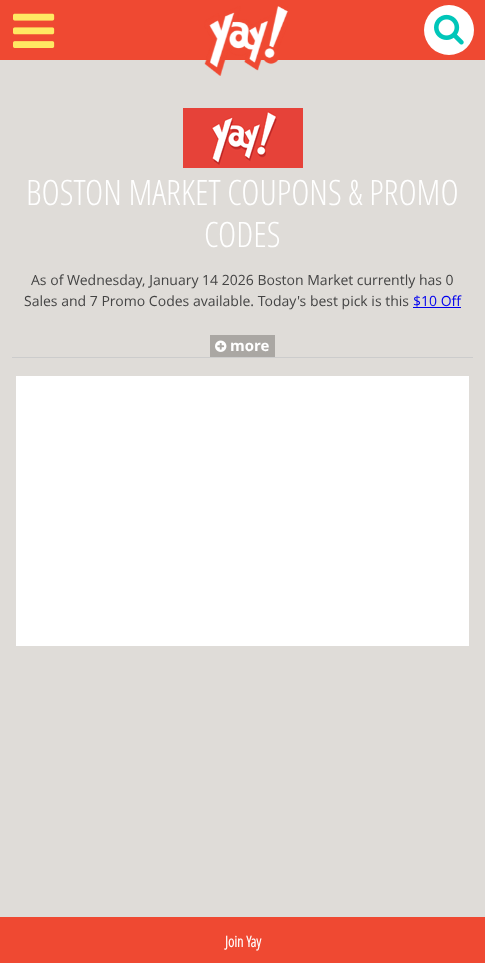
(async () => {
const canvas = document.querySelector("canvas")
canvas.width = 485
canvas.height = 963
const c = canvas.getContext("2d")
c.miterLimit = 4
c.fontKerning = "normal"
function T(s,x,y){c.fillText(s,x,y)}
function R(x,y,w,h){c.fillRect(x,y,w,h)}
async function I(src,x,y,w,h){const img=new Image();img.src=src;await img.decode();c.drawImage(img,x,y,w,h)}
c.fillStyle="#dfdcd8"
R(0,0,485,963)
c.fillStyle="#ef4932"
R(0,0,485,60)
await I("1.png",13,13,42,35)
await I("2.png",204,6,84,70)
c.fillStyle="#fff"
c.beginPath()
c.arc(449,30,25,0,7)
c.fill()
await I("3.png",434,14,30,31)
await I("4.png",183,108,120,60)
c.font="300 35px Open Sans Condensed"
T("BOSTON MARKET COUPONS & PROMO",26,205)
T("CODES",204,247)
c.fillStyle="#ccc"
R(12,357,461,1)
c.font="14px Open Sans"
c.fillStyle="#444"
T("As of Wednesday, January 14 2026 Boston Market currently has 0",31,285)
T("Sales and 7 Promo Codes available. Today's best pick is this",24,306)
c.fillStyle="#00e"
T("$10 Off",413,306)
R(413,307,48,1)
c.fillStyle="#aaa7a3"
R(210,335,65,22)
await I("5.png",215,340,12,12)
c.font="bold 15px Open Sans"
c.fillStyle="#fff"
T("more",230,351)
R(16,376,453,270)
c.fillStyle="#ef4932"
R(0,917,485,46)
c.font="bold 15px Open Sans Condensed"
c.fillStyle="#fff"
T("Join Yay",225,947)
})()
